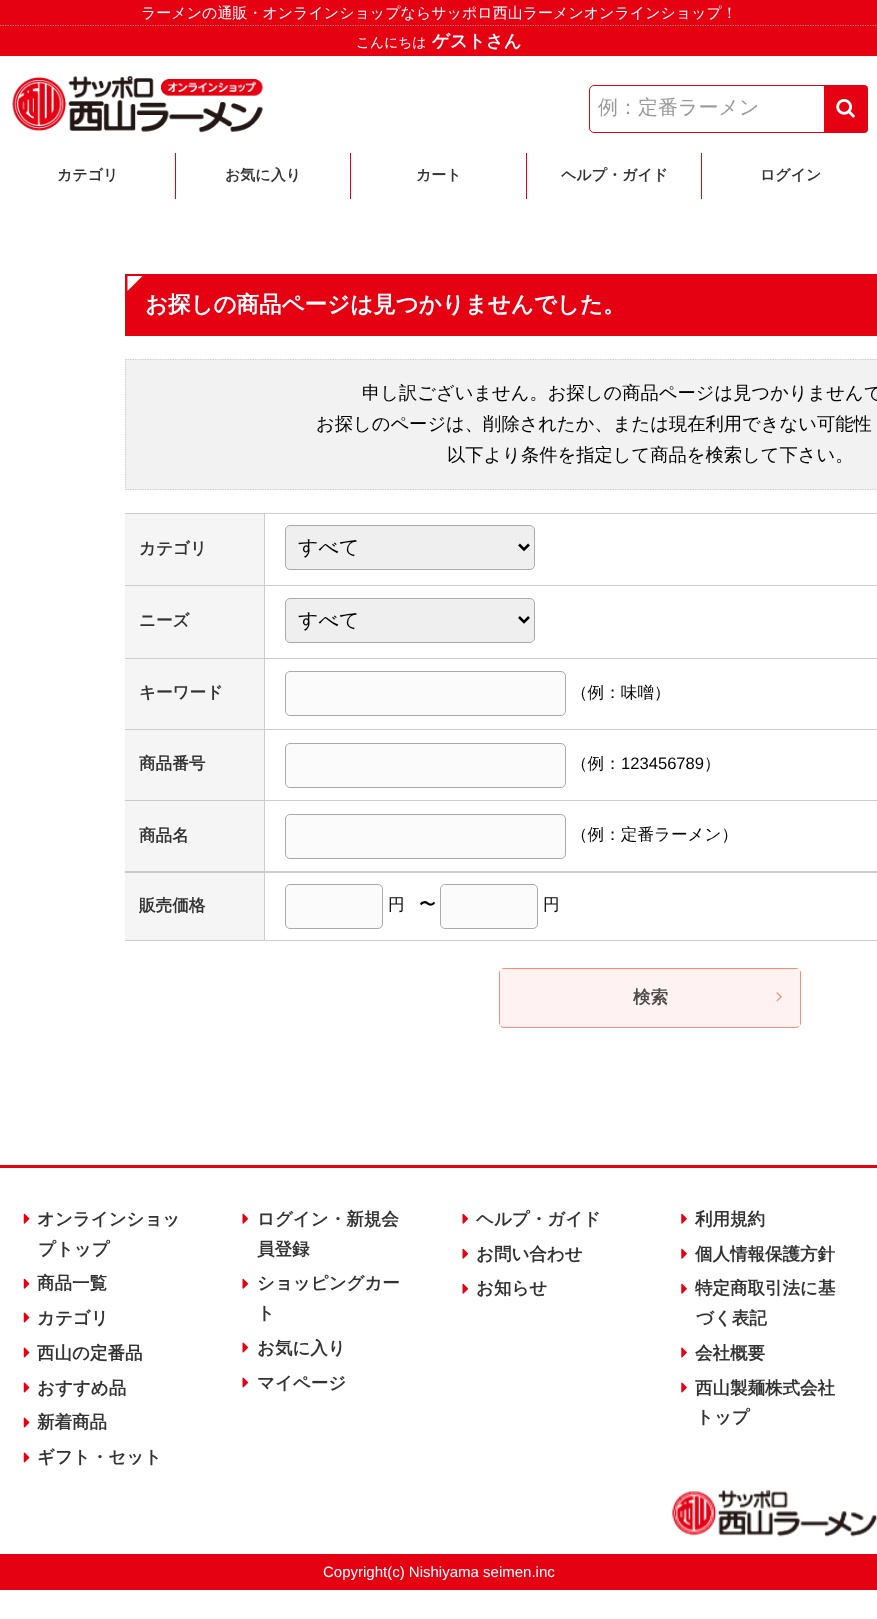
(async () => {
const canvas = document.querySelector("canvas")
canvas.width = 877
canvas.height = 1619
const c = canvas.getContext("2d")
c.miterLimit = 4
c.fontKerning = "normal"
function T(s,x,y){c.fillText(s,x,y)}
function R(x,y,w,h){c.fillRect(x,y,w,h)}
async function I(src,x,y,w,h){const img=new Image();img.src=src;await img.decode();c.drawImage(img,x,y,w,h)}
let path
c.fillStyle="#fff"
R(0,0,877,1619)
c.fillStyle="#e50012"
R(0,0,877,56)
c.font="500 15px WenQuanYi Zen Hei"
c.fillStyle="#fff"
T("ラーメンの通販・オンラインショップならサッポロ西山ラーメンオンラインショップ！",141,18)
path = new Path2D("M0 25.5h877.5")
c.strokeStyle="#f28089"
c.lineWidth=1.2
c.setLineDash([1.25,1.25])
c.stroke(path)
c.font="500 13.75px WenQuanYi Zen Hei"
T("こんにちは",356,47)
c.font="bold 17.5px WenQuanYi Zen Hei"
T("ゲストさん",432,47)
await I("1.png",12,76,251,57)
c.beginPath()
c.roundRect(589.5,85.5,275,47,4.5)
c.strokeStyle="#e50012"
c.lineWidth=1
c.setLineDash([])
c.stroke()
c.font="500 20px WenQuanYi Zen Hei"
c.fillStyle="#999"
T("例：定番ラーメン",598,114)
c.fillStyle="#e50012"
c.beginPath()
c.roundRect(824,85,44,48,[0,4,4,0])
c.fill()
await I("2.png",836,99,19,19)
R(175,153,1,46)
c.font="bold 15px WenQuanYi Zen Hei"
c.fillStyle="#333"
T("カテゴリ",57,180)
c.fillStyle="#e50012"
R(350,153,1,46)
c.fillStyle="#333"
T("お気に入り",225,180)
c.fillStyle="#e50012"
R(526,153,1,46)
c.fillStyle="#333"
T("カート",416,180)
c.fillStyle="#e50012"
R(701,153,1,46)
c.fillStyle="#333"
T("ヘルプ・ガイド",561,180)
T("ログイン",760,180)
c.fillStyle="#e50012"
R(125,274,752,62)
c.fillStyle="#fff"
path = new Path2D("M127.5 276h15l-15 15z")
c.fill(path)
c.font="bold 22.5px WenQuanYi Zen Hei"
T("お探しの商品ページは見つかりませんでした。",145,312)
c.fillStyle="#f2f2f2"
R(125,359,752,131)
path = new Path2D("M125 359.5h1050")
c.strokeStyle="#ccc"
c.lineWidth=1.2
c.setLineDash([1.25,1.25])
c.stroke(path)
path = new Path2D("M125 489.5h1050")
c.stroke(path)
path = new Path2D("M125.5 359v131")
c.stroke(path)
c.font="500 18.3px WenQuanYi Zen Hei"
c.fillStyle="#000"
T("申し訳ございません。お探しの商品ページは見つかりませんで",362,399)
T("お探しのページは、削除されたか、または現在利用できない可能性",316,430)
T("以下より条件を指定して商品を検索して下さい。",447,461)
c.fillStyle="#ccc"
R(125,513,752,428)
c.fillStyle="#f5f5f5"
R(125,514,139,71)
c.font="bold 16.6px WenQuanYi Zen Hei"
c.fillStyle="#333"
T("カテゴリ",139,554)
c.fillStyle="#fff"
R(265,514,612,71)
c.fillStyle="#efefef"
c.beginPath()
c.roundRect(285.5,525.5,249,44,4.5)
c.fill()
c.strokeStyle="#aaa"
c.lineWidth=1
c.setLineDash([])
c.stroke()
path = new Path2D("M519 544.5l5 5l5-5")
c.strokeStyle="#000"
c.lineWidth=2.5
c.stroke(path)
c.font="500 20px WenQuanYi Zen Hei"
c.fillStyle="#000"
T("すべて",298,554)
c.fillStyle="#f5f5f5"
R(125,586,139,72)
c.font="bold 16.6px WenQuanYi Zen Hei"
c.fillStyle="#333"
T("ニーズ",139,626)
c.fillStyle="#fff"
R(265,586,612,72)
c.fillStyle="#efefef"
c.beginPath()
c.roundRect(285.5,598.5,249,44,4.5)
c.fill()
c.strokeStyle="#aaa"
c.lineWidth=1
c.stroke()
path = new Path2D("M519 617l5 5l5-5")
c.strokeStyle="#000"
c.lineWidth=2.5
c.stroke(path)
c.font="500 20px WenQuanYi Zen Hei"
c.fillStyle="#000"
T("すべて",298,627)
c.fillStyle="#f5f5f5"
R(125,659,139,70)
c.font="bold 16.6px WenQuanYi Zen Hei"
c.fillStyle="#333"
T("キーワード",139,698)
c.fillStyle="#fff"
R(265,659,612,70)
c.fillStyle="#fbfbfb"
c.beginPath()
c.roundRect(285.5,671.5,280,44,4.5)
c.fill()
c.strokeStyle="#aaa"
c.lineWidth=1
c.stroke()
c.font="500 16.6px WenQuanYi Zen Hei"
c.fillStyle="#000"
T("（例：味噌）",571,698)
c.fillStyle="#f5f5f5"
R(125,730,139,70)
c.font="bold 16.6px WenQuanYi Zen Hei"
c.fillStyle="#333"
T("商品番号",139,769)
c.fillStyle="#fff"
R(265,730,612,70)
c.fillStyle="#fbfbfb"
c.beginPath()
c.roundRect(285.5,743.5,280,44,4.5)
c.fill()
c.stroke()
c.font="500 16.6px WenQuanYi Zen Hei"
c.fillStyle="#000"
T("（例：",571,769)
c.font="16.6px Liberation Sans"
T("123456789",621,769)
c.font="500 16.6px WenQuanYi Zen Hei"
T("）",704,769)
c.fillStyle="#f5f5f5"
R(125,801,139,70)
c.font="bold 16.6px WenQuanYi Zen Hei"
c.fillStyle="#333"
T("商品名",139,841)
c.fillStyle="#fff"
R(265,801,612,70)
c.fillStyle="#fbfbfb"
c.beginPath()
c.roundRect(285.5,814.5,280,44,4.5)
c.fill()
c.stroke()
c.font="500 16.6px WenQuanYi Zen Hei"
c.fillStyle="#000"
T("（例：定番ラーメン）",571,840)
c.fillStyle="#f5f5f5"
R(125,873,139,67)
c.font="bold 16.6px WenQuanYi Zen Hei"
c.fillStyle="#333"
T("販売価格",139,911)
c.fillStyle="#fff"
R(265,873,612,67)
c.fillStyle="#fbfbfb"
c.beginPath()
c.roundRect(285.5,884.5,97,44,4.5)
c.fill()
c.stroke()
c.font="500 16.6px WenQuanYi Zen Hei"
c.fillStyle="#000"
T("円",388,910)
c.font="bold 16.6px WenQuanYi Zen Hei"
T("〜",419,910)
c.fillStyle="#fbfbfb"
c.beginPath()
c.roundRect(440.5,884.5,97,44,4.5)
c.fill()
c.stroke()
c.font="500 16.6px WenQuanYi Zen Hei"
c.fillStyle="#000"
T("円",543,910)
c.fillStyle="#fff2f2"
c.beginPath()
c.roundRect(499.5,968.5,301,59,4.5)
c.fill()
c.strokeStyle="#fe8a77"
c.stroke()
R(500,969,300,57)
c.font="bold 17.5px WenQuanYi Zen Hei"
c.fillStyle="#4c4c4c"
T("検索",633,1003)
await I("3.png",776,992,6,10)
c.fillStyle="#e50012"
R(0,1165,877,3)
await I("4.png",23,1213,7,11)
c.fillStyle="#333"
T("オンラインショッ",37,1225)
T("プトップ",38,1255)
await I("4.png",23,1278,7,11)
T("商品一覧",37,1289)
await I("5.png",23,1312,7,11)
T("カテゴリ",37,1324)
await I("5.png",23,1347,7,11)
T("西山の定番品",37,1359)
await I("5.png",23,1382,7,11)
T("おすすめ品",37,1394)
await I("5.png",23,1417,7,11)
T("新着商品",37,1428)
await I("5.png",23,1452,7,11)
T("ギフト・セット",37,1463)
await I("6.png",242,1213,7,11)
T("ログイン・新規会",257,1225)
T("員登録",257,1255)
await I("6.png",242,1278,7,11)
T("ショッピングカー",257,1289)
T("ト",257,1319)
await I("7.png",242,1342,7,11)
T("お気に入り",257,1354)
await I("7.png",242,1377,7,11)
T("マイページ",257,1389)
await I("6.png",462,1213,7,11)
T("ヘルプ・ガイド",476,1225)
await I("6.png",462,1248,7,11)
T("お問い合わせ",476,1260)
await I("6.png",462,1283,7,11)
T("お知らせ",476,1294)
await I("8.png",681,1213,6,11)
T("利用規約",695,1225)
await I("8.png",681,1248,6,11)
T("個人情報保護方針",695,1260)
await I("8.png",681,1283,6,11)
T("特定商取引法に基",695,1294)
T("づく表記",696,1324)
await I("9.png",681,1347,6,11)
T("会社概要",695,1359)
await I("9.png",681,1382,6,11)
T("西山製麺株式会社",695,1394)
T("トップ",696,1423)
await I("10.png",672,1490,205,47)
c.fillStyle="#e50012"
R(0,1554,877,36)
c.font="15px Liberation Sans"
c.fillStyle="#fff"
T("Copyright(c) Nishiyama seimen.inc",323,1577)
})()
